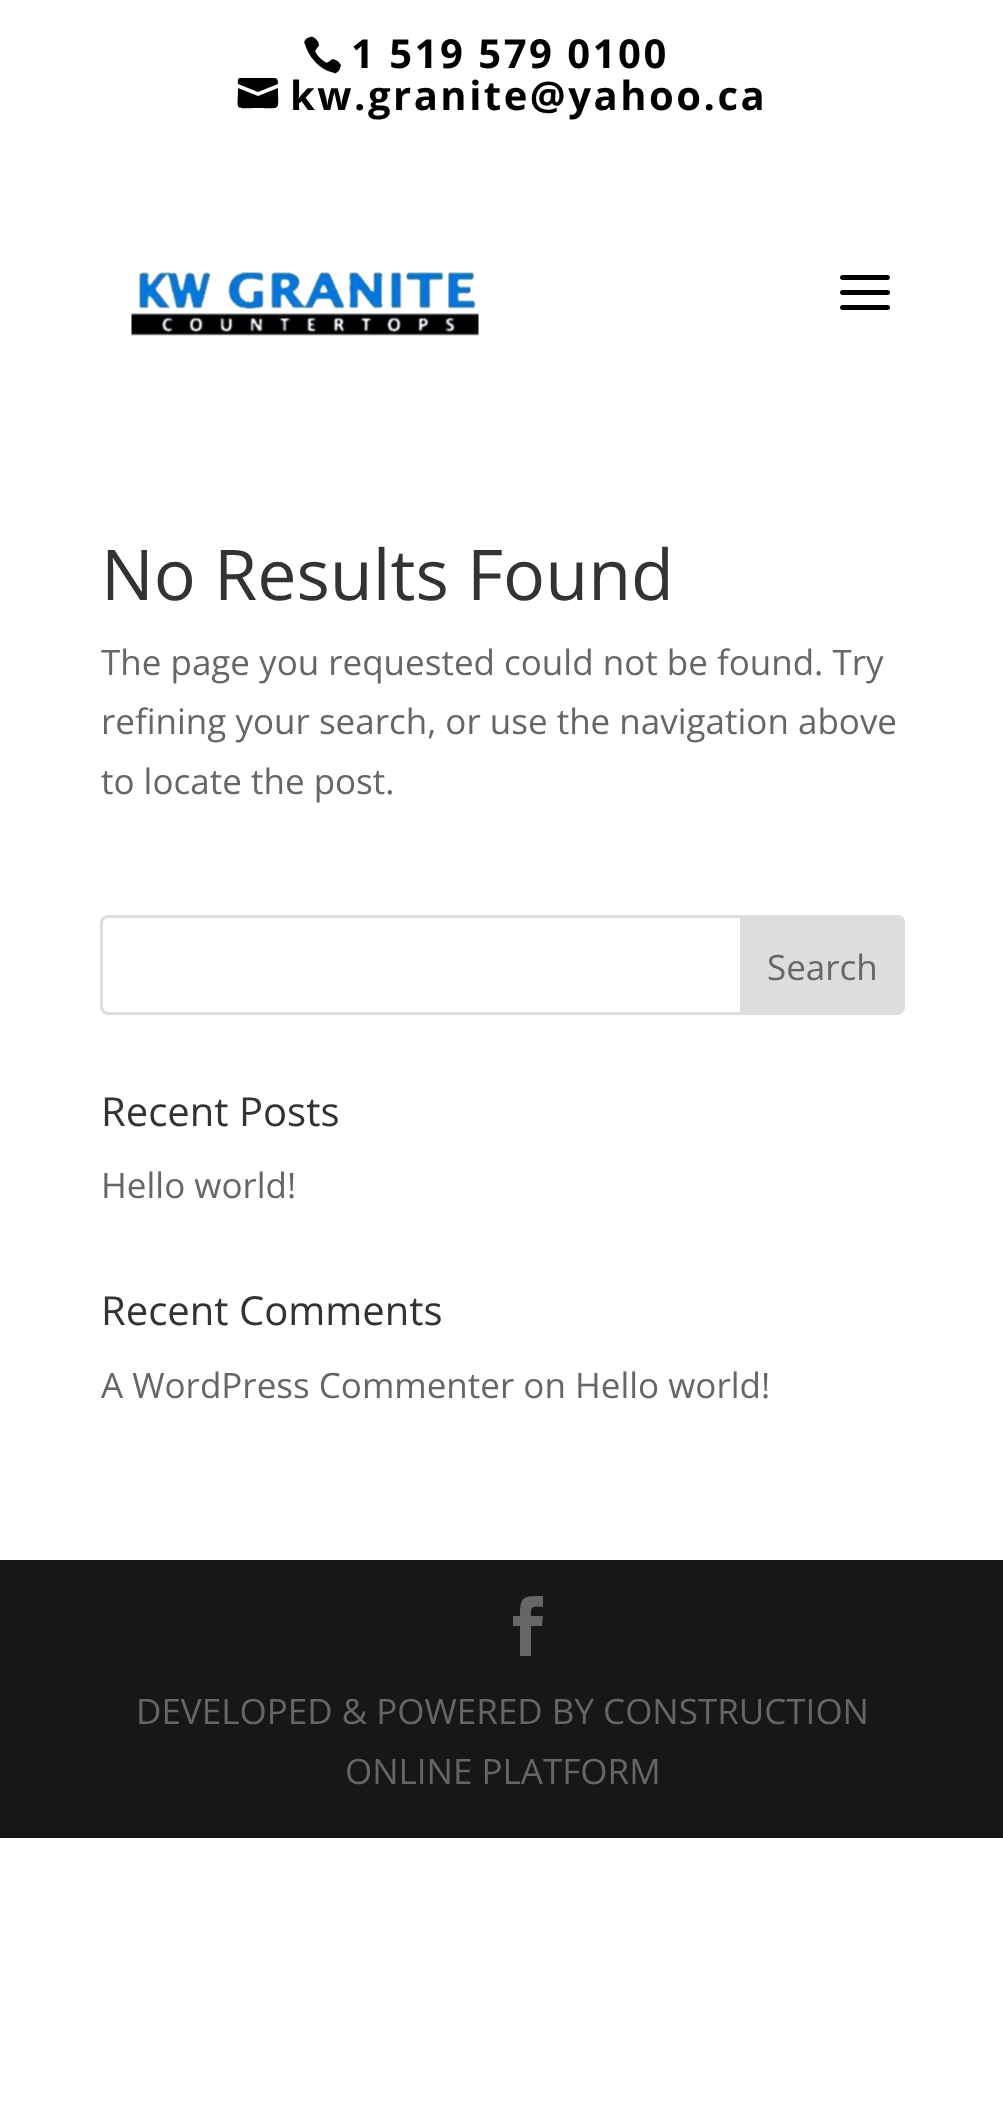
(async () => {
const canvas = document.querySelector("canvas")
canvas.width = 1003
canvas.height = 2122
const c = canvas.getContext("2d")
c.miterLimit = 4
c.fontKerning = "normal"
function T(s,x,y){c.fillText(s,x,y)}
function R(x,y,w,h){c.fillRect(x,y,w,h)}
async function I(src,x,y,w,h){const img=new Image();img.src=src;await img.decode();c.drawImage(img,x,y,w,h)}
let path
c.fillStyle="#fff"
R(0,0,1003,2122)
await I("1.png",304,36,37,38)
c.letterSpacing="2.5px"
c.font="bold 40px Open Sans"
c.fillStyle="#000"
T("1 519 579 0100",351,68)
T("kw.granite@yahoo.ca",290,110)
path = new Path2D("M275 78h-35c-3 0-2 4-2 6l20 8l20-8c0-2 0-6-3-6zm-37 10c0 24-5 20 20 20c24 0 20 4 20-20l-20 8z")
c.fill(path)
await I("2.png",131,272,348,64)
await I("3.png",840,275,50,35)
c.letterSpacing="0px"
c.font="70px Open Sans"
c.fillStyle="#333"
T("No Results Found",101,600)
c.font="35px Open Sans"
c.fillStyle="#666"
T("The page you requested could not be found. Try",101,675)
T("refining your search, or use the navigation above",101,734)
T("to locate the post.",101,794)
c.beginPath()
c.roundRect(101.5,916.5,802,97,6.5)
c.strokeStyle="#ddd"
c.lineWidth=3
c.stroke()
c.fillStyle="#ddd"
c.beginPath()
c.roundRect(741.5,916.5,162,97,[0,6.5,6.5,0])
c.fill()
c.stroke()
c.fillStyle="#666"
T("Search",767,980)
c.font="40px Open Sans"
c.fillStyle="#333"
T("Recent Posts",101,1126)
c.font="35px Open Sans"
c.fillStyle="#666"
T("Hello world!",101,1198)
c.font="40px Open Sans"
c.fillStyle="#333"
T("Recent Comments",101,1325)
c.font="35px Open Sans"
c.fillStyle="#666"
T("A WordPress Commenter on Hello world!",101,1398)
c.fillStyle="#171717"
R(0,1560,1003,278)
c.fillStyle="#666"
path = new Path2D("M520 1656h11v-30h11l1-10h-12c0-11 1-9 12-9v-11c-20 0-23 0-23 20h-7v10h7z")
c.fill(path)
T("DEVELOPED & POWERED BY CONSTRUCTION",136,1724)
T("ONLINE PLATFORM",345,1784)
})()
